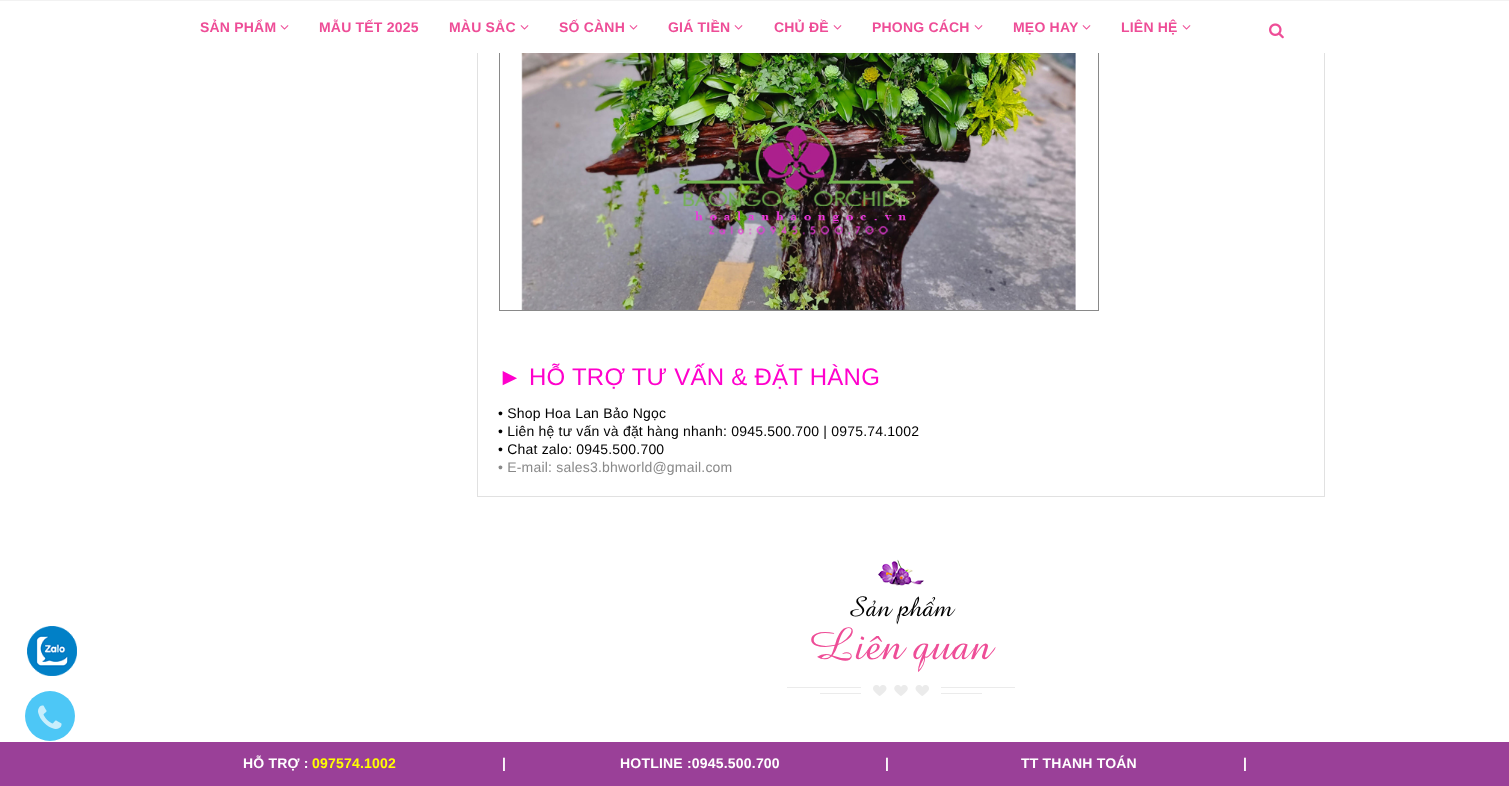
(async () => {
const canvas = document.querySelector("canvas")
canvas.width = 1509
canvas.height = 786
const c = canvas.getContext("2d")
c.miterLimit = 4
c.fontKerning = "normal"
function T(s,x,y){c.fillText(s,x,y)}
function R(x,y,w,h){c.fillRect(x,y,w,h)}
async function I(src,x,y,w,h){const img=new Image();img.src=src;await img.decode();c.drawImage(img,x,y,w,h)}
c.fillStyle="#fff"
R(0,0,1509,786)
c.strokeStyle="#898989"
c.strokeRect(499.5,-.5,599,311)
R(499,1,600,52)
c.fillStyle="#f2f2f2"
R(0,0,1509,1)
c.letterSpacing="0.2px"
c.font="bold 14px Liberation Sans"
c.fillStyle="#ee4d97"
T("SẢN PHẨM",200,32)
await I("1.png",280,25,9,5)
T("MẪU TẾT 2025",319,32)
T("MÀU SẮC",449,32)
await I("1.png",520,25,9,5)
T("SỐ CÀNH",559,32)
await I("1.png",629,25,9,5)
T("GIÁ TIỀN",668,32)
await I("1.png",734,25,9,5)
T("CHỦ ĐỀ",774,32)
await I("1.png",833,25,9,5)
T("PHONG CÁCH",872,32)
await I("1.png",974,25,9,5)
T("MẸO HAY",1013,32)
await I("1.png",1082,25,9,5)
T("LIÊN HỆ",1121,32)
await I("1.png",1182,25,9,5)
await I("2.png",1269,23,15,16)
await I("3.png",27,626,50,50)
c.fillStyle="#e1e1e1"
R(1324,53,1,444)
R(477,496,848,1)
R(477,53,1,444)
await I("4.png",521,53,555,257)
c.letterSpacing="0.25px"
c.font="24px Liberation Sans"
c.fillStyle="#f0c"
T("► HỖ TRỢ TƯ VẤN & ĐẶT HÀNG",498,385)
c.letterSpacing="0.2px"
c.font="14px Liberation Sans"
c.fillStyle="#000"
T("• Shop Hoa Lan Bảo Ngọc",498,418)
T("• Liên hệ tư vấn và đặt hàng nhanh: 0945.500.700 | 0975.74.1002",498,436)
T("• Chat zalo: 0945.500.700",498,454)
c.fillStyle="#898989"
T("• E-mail: sales3.bhworld@gmail.com",498,472)
await I("5.png",878,559,46,27)
c.letterSpacing="0.25px"
c.font="italic 28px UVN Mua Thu"
c.fillStyle="#000"
T("Sản phẩm",847,616)
c.font="italic 45px UVN Mua Thu"
c.fillStyle="#ee4d97"
T("Liên quan",810,659)
await I("6.png",787,685,228,11)
c.fillStyle="#4dc7f6"
c.beginPath()
c.arc(50,716,25,0,7)
c.fill()
await I("7.png",38,705,24,24)
c.fillStyle="#9a4098"
R(0,742,1509,44)
c.letterSpacing="0.2px"
c.font="bold 14px Liberation Sans"
c.fillStyle="#fff"
T("HỖ TRỢ :",243,768)
c.fillStyle="#ff0"
T("097574.1002",312,768)
c.fillStyle="#fff"
T("|",502,768)
T("HOTLINE :0945.500.700",620,768)
T("|",885,768)
T("TT THANH TOÁN",1021,768)
T("|",1243,768)
})()
